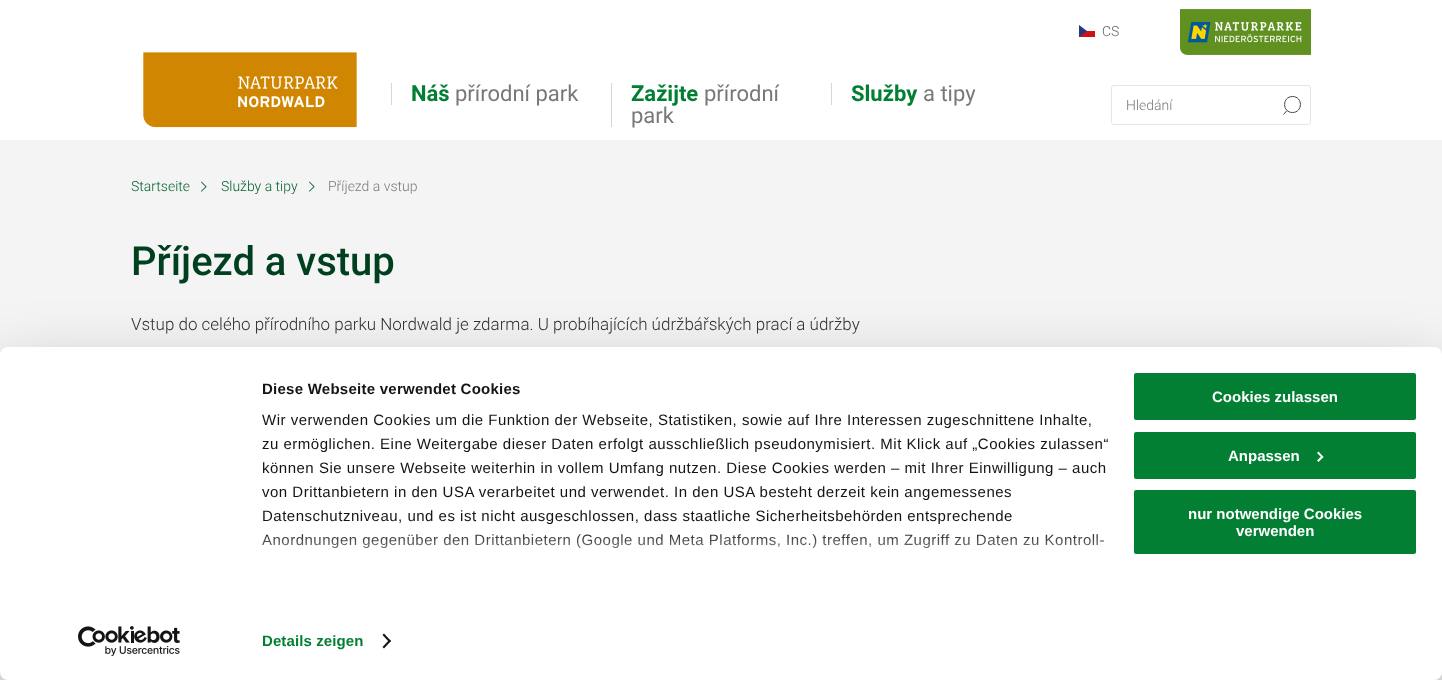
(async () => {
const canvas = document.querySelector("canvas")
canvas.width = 1442
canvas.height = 680
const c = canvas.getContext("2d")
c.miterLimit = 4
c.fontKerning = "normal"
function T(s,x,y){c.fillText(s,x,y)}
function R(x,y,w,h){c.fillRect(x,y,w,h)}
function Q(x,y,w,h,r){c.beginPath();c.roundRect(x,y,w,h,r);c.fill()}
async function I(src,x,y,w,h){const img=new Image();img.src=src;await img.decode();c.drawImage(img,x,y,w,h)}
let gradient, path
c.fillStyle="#f4f4f4"
R(0,0,1442,680)
c.fillStyle="#fff"
R(0,0,1442,140)
await I("1.png",143,52,214,76)
await I("2.png",1079,25,16,12)
c.font="300 14px Roboto"
c.fillStyle="#666"
T("CS",1102,36)
await I("3.png",1180,9,131,46)
c.fillStyle="#ddd5ca"
R(391,83,1,22)
c.font="bold 22px Roboto"
c.fillStyle="#027f33"
T("Náš",411,101)
c.font="22px Roboto"
c.fillStyle="#787878"
T("přírodní park",455,101)
c.fillStyle="#ddd5ca"
R(611,83,1,44)
c.font="bold 22px Roboto"
c.fillStyle="#027f33"
T("Zažijte",631,101)
c.font="22px Roboto"
c.fillStyle="#787878"
T("přírodní",704,101)
T("park",631,123)
c.fillStyle="#ddd5ca"
R(831,83,1,22)
c.font="bold 22px Roboto"
c.fillStyle="#027f33"
T("Služby",851,101)
c.font="22px Roboto"
c.fillStyle="#787878"
T("a tipy",923,101)
path = new Path2D("M1292.5 96.5c10.5 0 10.5 16 0 16c-10.5 0-10.5-16 0-16zm-5.5 14l-3.5 4")
c.strokeStyle="#464646"
c.stroke(path)
c.beginPath()
c.roundRect(1111.5,85.5,199,39,2.5)
c.strokeStyle="#e6e6e6"
c.stroke()
c.font="300 14px Roboto"
T("Hledání",1126,110)
c.fillStyle="#00612f"
T("Startseite",131,191)
await I("4.png",201,181,6,11)
T("Služby a tipy",221,191)
await I("4.png",309,181,6,11)
c.fillStyle="#787878"
T("Příjezd a vstup",328,191)
c.font="500 40px Roboto"
c.fillStyle="#00401f"
T("Příjezd a vstup",131,275)
c.font="300 17px Roboto"
c.fillStyle="#323232"
T("Vstup do celého přírodního parku Nordwald je zdarma. U probíhajících údržbářských prací a údržby",131,330)
c.fillStyle="#0000004d"
c.filter="blur(35px)"
c.beginPath()
c.roundRect(0,377,1442,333,8)
c.fill()
c.filter="none"
c.fillStyle="#fff"
Q(0,347,1442,333,8)
c.letterSpacing="0.25px"
c.font="bold 15px Liberation Sans"
c.fillStyle="#141414"
T("Diese Webseite verwendet Cookies",262,394)
c.letterSpacing="0.5px"
c.font="15px Liberation Sans"
T("Wir verwenden Cookies um die Funktion der Webseite, Statistiken, sowie auf Ihre Interessen zugeschnittene Inhalte,",262,425)
T("zu ermöglichen. Eine Weitergabe dieser Daten erfolgt ausschließlich pseudonymisiert. Mit Klick auf „Cookies zulassen“",262,449)
T("können Sie unsere Webseite weiterhin in vollem Umfang nutzen. Diese Cookies werden – mit Ihrer Einwilligung – auch",262,473)
T("von Drittanbietern in den USA verarbeitet und verwendet. In den USA besteht derzeit kein angemessenes",262,497)
T("Datenschutzniveau, und es ist nicht ausgeschlossen, dass staatliche Sicherheitsbehörden entsprechende",262,521)
T("Anordnungen gegenüber den Drittanbietern (Google und Meta Platforms, Inc.) treffen, um Zugriff zu Daten zu Kontroll-",262,545)
gradient = c.createLinearGradient(685,604,685,529)
gradient.addColorStop(0,"#fff")
gradient.addColorStop(.5,"#ffffffcc")
gradient.addColorStop(1,"#ffffff00")
c.fillStyle = gradient
R(262,534,842,15)
c.letterSpacing="0.1px"
c.font="bold 15px Liberation Sans"
c.fillStyle="#027f33"
T("Details zeigen",262,646)
c.fillStyle="#141414"
path = new Path2D("M384 633.5l7 7.5l-1.5 1.5l-7-7.5z")
c.fill(path)
path = new Path2D("M389.5 639.5l1.5 1.5l-7 7.5l-1.5-1.5z")
c.fill(path)
c.fillStyle="#027f33"
c.beginPath()
c.roundRect(1133,372,284,49,3)
c.fill()
c.strokeStyle="#fff"
c.lineWidth=2
c.stroke()
c.letterSpacing="0px"
c.fillStyle="#fff"
T("Cookies zulassen",1212,402)
c.fillStyle="#027f33"
c.beginPath()
c.roundRect(1133,431,284,49,3)
c.fill()
c.stroke()
c.fillStyle="#fff"
T("Anpassen",1228,461)
path = new Path2D("M1318.5 451.5l5 5.5l-1.5 1l-5-5z")
c.fill(path)
path = new Path2D("M1322 455.5l1.5 1.5l-5 5l-1.5-1.5z")
c.fill(path)
c.fillStyle="#027f33"
c.beginPath()
c.roundRect(1133,489,284,66,3)
c.fill()
c.stroke()
c.fillStyle="#fff"
T("nur notwendige Cookies",1188,519)
T("verwenden",1236,536)
await I("5.png",78,626,102,30)
})()
